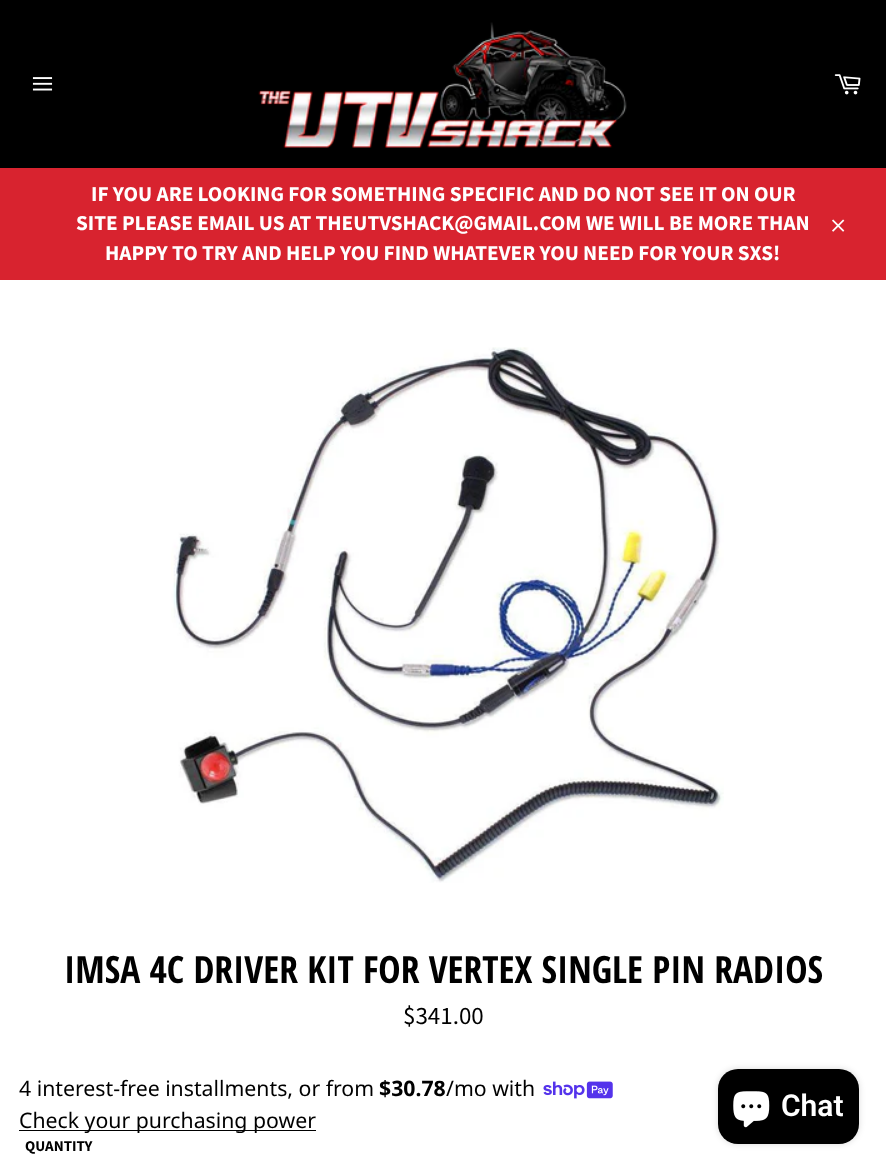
(async () => {
const canvas = document.querySelector("canvas")
canvas.width = 886
canvas.height = 1169
const c = canvas.getContext("2d")
c.miterLimit = 4
c.fontKerning = "normal"
function T(s,x,y){c.fillText(s,x,y)}
function R(x,y,w,h){c.fillRect(x,y,w,h)}
function Q(x,y,w,h,r){c.beginPath();c.roundRect(x,y,w,h,r);c.fill()}
async function I(src,x,y,w,h){const img=new Image();img.src=src;await img.decode();c.drawImage(img,x,y,w,h)}
c.fillStyle="#fff"
R(0,0,886,1169)
c.fillStyle="#000"
R(0,0,886,168)
await I("1.png",32,77,21,14)
await I("2.png",258,22,369,126)
await I("3.png",834,74,27,21)
c.fillStyle="#d8232f"
R(0,168,886,112)
c.font="bold 21.25px Source Sans Pro"
c.fillStyle="#fff"
T("IF YOU ARE LOOKING FOR SOMETHING SPECIFIC AND DO NOT SEE IT ON OUR",91,201)
T("SITE PLEASE EMAIL US AT THEUTVSHACK@GMAIL.COM WE WILL BE MORE THAN",76,230)
T("HAPPY TO TRY AND HELP YOU FIND WHATEVER YOU NEED FOR YOUR SXS!",105,260)
await I("4.png",832,219,13,13)
await I("5.png",171,347,553,536)
c.font="bold 37.5px Open Sans Condensed"
c.fillStyle="#000"
T("IMSA 4C DRIVER KIT FOR VERTEX SINGLE PIN RADIOS",64,983)
c.font="25px Source Sans Pro"
T("$341.00",403,1024)
c.font="21.25px Noto Sans"
T("4 interest-free installments, or from",19,1096)
c.font="bold 21.25px Noto Sans"
T("$30.78",379,1096)
c.font="21.25px Noto Sans"
T("/mo with",446,1096)
await I("6.png",543,1081,70,18)
R(19,1130,297,1)
T("Check your purchasing power",19,1128)
c.font="bold 15px Source Sans Pro"
T("QUANTITY",25,1151)
c.fillStyle="#00000026"
c.filter="blur(3px)"
c.beginPath()
c.roundRect(718,1069,141,75,20)
c.fill()
c.filter="none"
c.fillStyle="#000"
Q(718,1069,141,75,20)
await I("7.png",733,1091,37,37)
c.font="600 30px Roboto"
c.fillStyle="#fff"
T("Chat",781,1116)
})()
